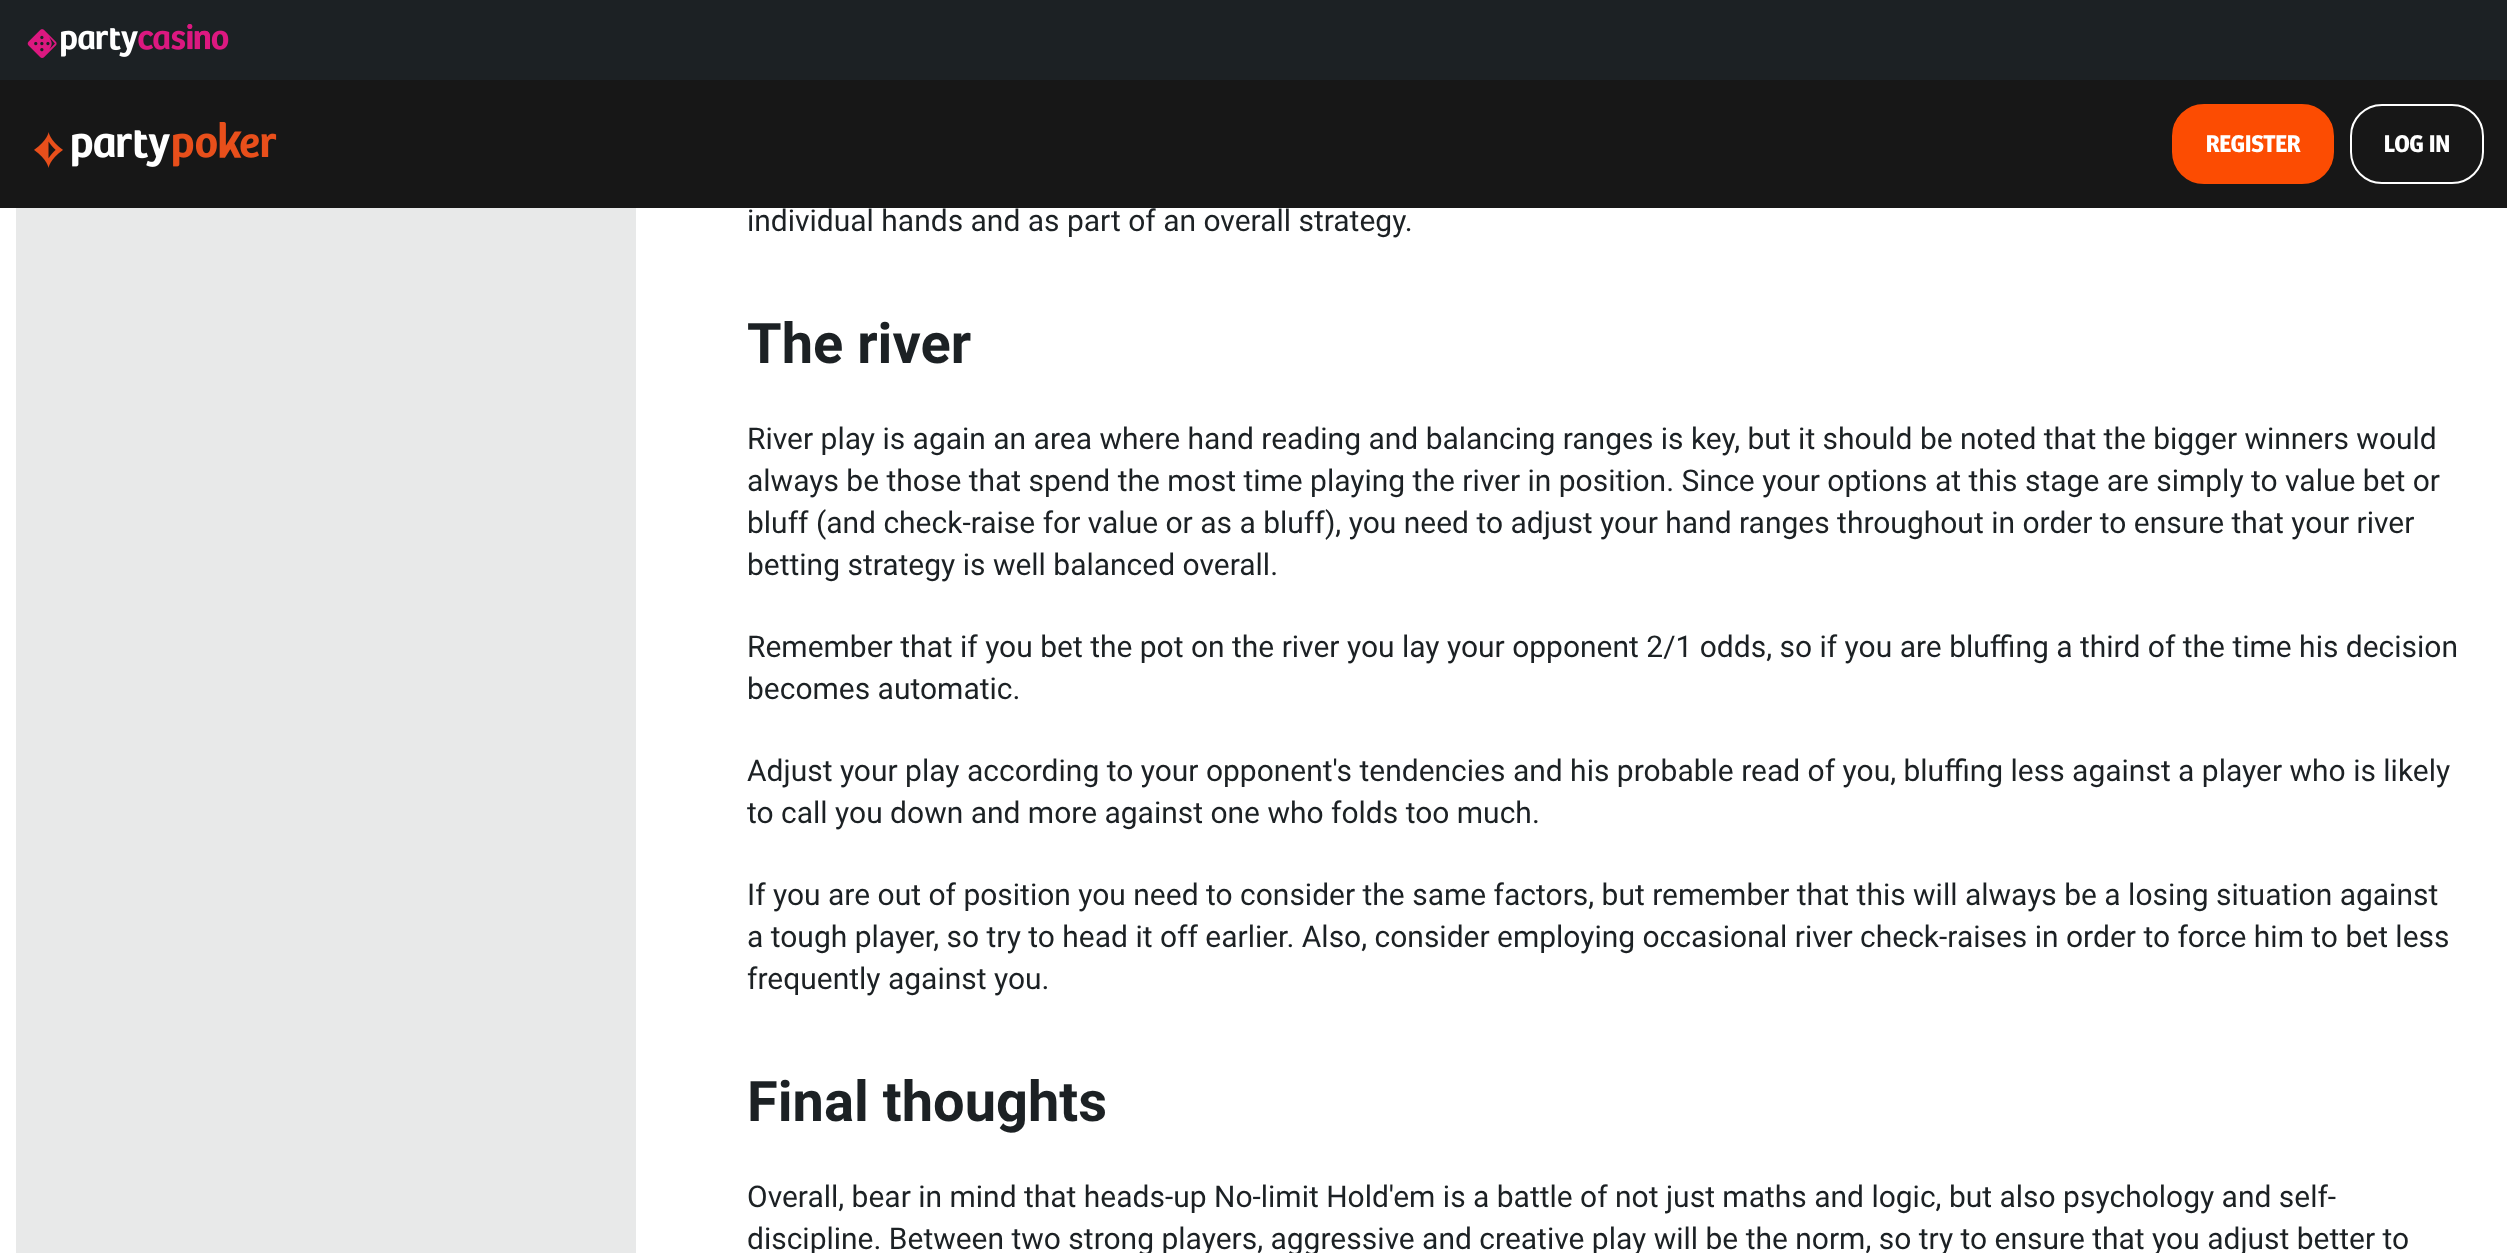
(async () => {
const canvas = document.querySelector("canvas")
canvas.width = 2507
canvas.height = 1253
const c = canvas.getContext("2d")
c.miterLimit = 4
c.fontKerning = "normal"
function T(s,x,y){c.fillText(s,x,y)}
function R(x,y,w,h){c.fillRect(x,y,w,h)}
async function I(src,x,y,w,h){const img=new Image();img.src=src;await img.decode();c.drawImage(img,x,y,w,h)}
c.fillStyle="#fff"
R(0,0,2507,1253)
c.fillStyle="#171717"
R(0,80,2507,128)
c.fillStyle="#1c2124"
R(0,0,2507,80)
await I("1.png",27,24,202,34)
await I("2.png",34,122,243,46)
c.fillStyle="#fc4c02"
c.beginPath()
c.roundRect(2173,105,160,78,31)
c.fill()
c.strokeStyle="#fc4c02"
c.lineWidth=2
c.stroke()
c.font="bold 24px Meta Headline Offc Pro"
c.fillStyle="#fff"
T("REGISTER",2206,152)
c.beginPath()
c.roundRect(2351,105,132,78,31)
c.strokeStyle="#fff"
c.stroke()
T("LOG IN",2384,152)
c.fillStyle="#e8e9e9"
R(16,208,620,1045)
c.font="30px Roboto"
c.fillStyle="#1c2124"
T("individual hands and as part of an overall strategy.",747,231)
c.font="bold 56px Roboto"
T("The river",747,363)
c.font="30px Roboto"
T("River play is again an area where hand reading and balancing ranges is key, but it should be noted that the bigger winners would",747,449)
T("always be those that spend the most time playing the river in position. Since your options at this stage are simply to value bet or",747,491)
T("bluff (and check-raise for value or as a bluff), you need to adjust your hand ranges throughout in order to ensure that your river",747,533)
T("betting strategy is well balanced overall.",747,575)
T("Remember that if you bet the pot on the river you lay your opponent 2/1 odds, so if you are bluffing a third of the time his decision",747,657)
T("becomes automatic.",747,699)
T("Adjust your play according to your opponent's tendencies and his probable read of you, bluffing less against a player who is likely",747,781)
T("to call you down and more against one who folds too much.",747,823)
T("If you are out of position you need to consider the same factors, but remember that this will always be a losing situation against",747,905)
T("a tough player, so try to head it off earlier. Also, consider employing occasional river check-raises in order to force him to bet less",747,947)
T("frequently against you.",747,989)
c.font="bold 56px Roboto"
T("Final thoughts",747,1121)
c.font="30px Roboto"
T("Overall, bear in mind that heads-up No-limit Hold'em is a battle of not just maths and logic, but also psychology and self-",747,1207)
T("discipline. Between two strong players, aggressive and creative play will be the norm, so try to ensure that you adjust better to",747,1249)
})()
